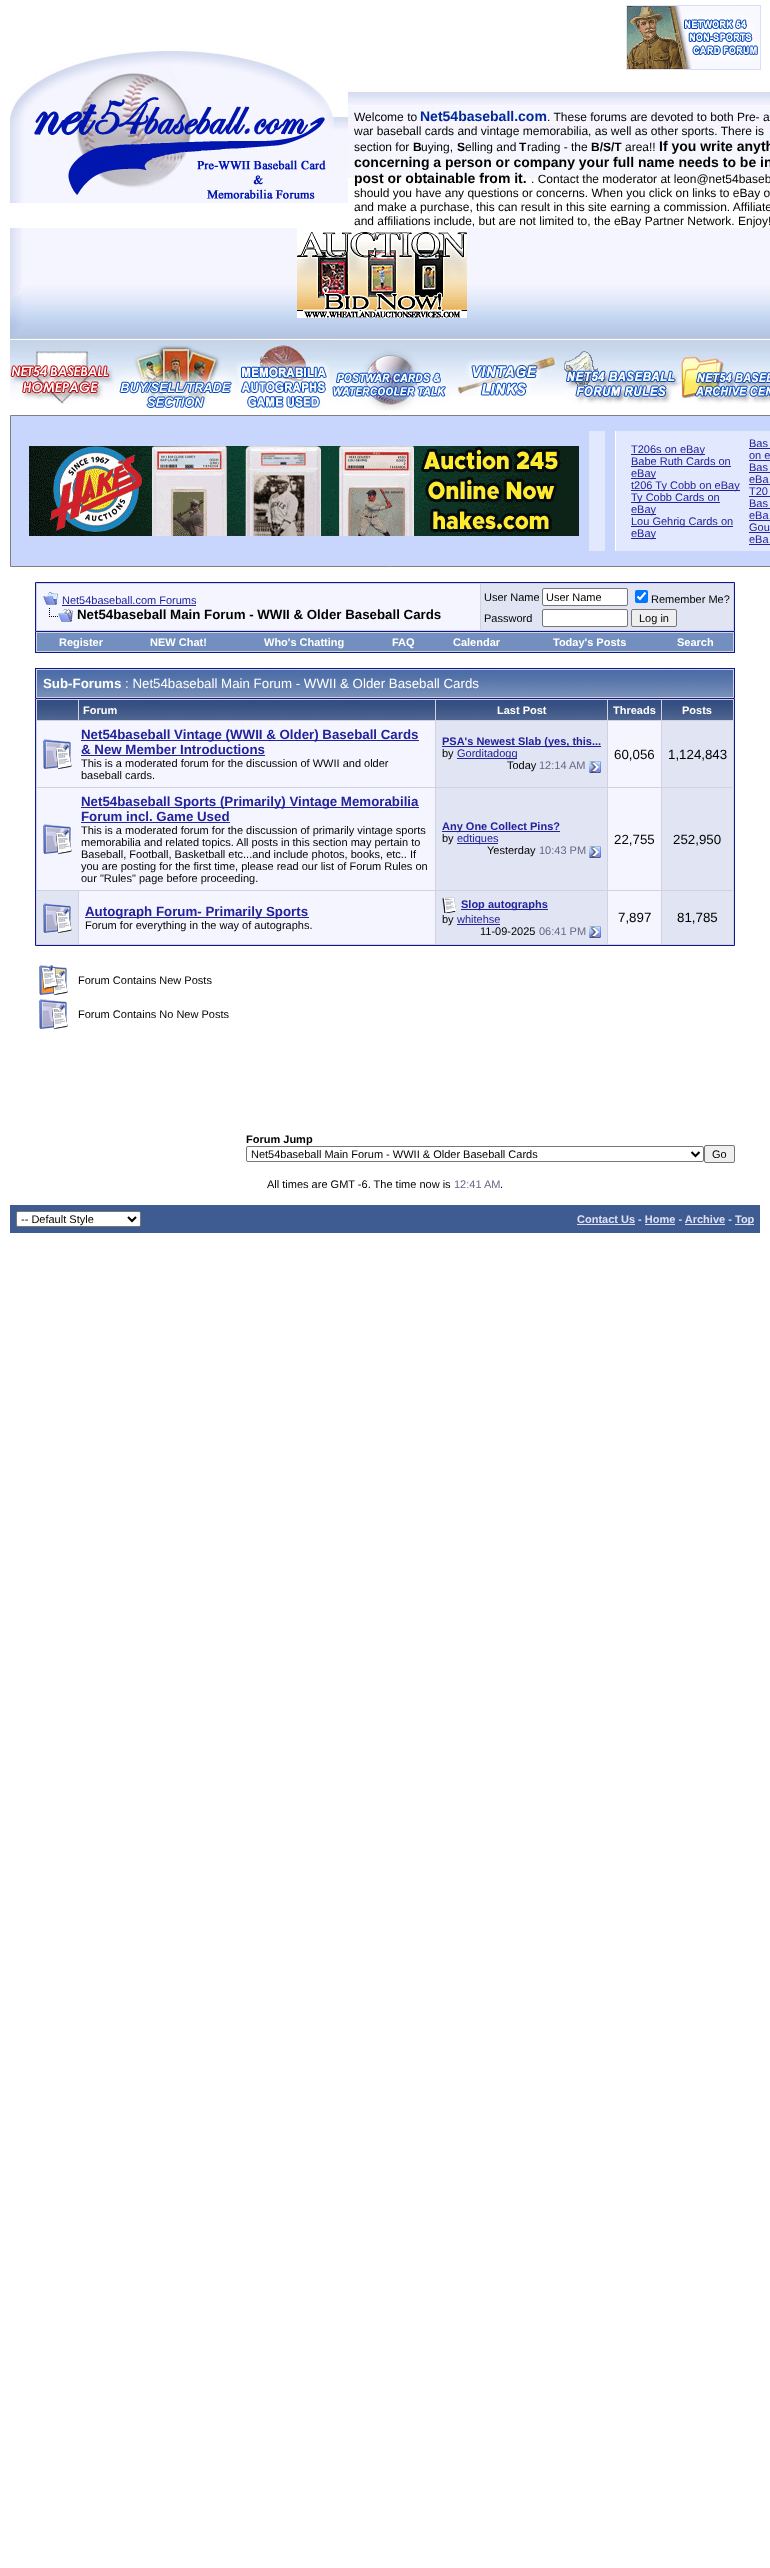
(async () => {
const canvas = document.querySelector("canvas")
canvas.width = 770
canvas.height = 2568
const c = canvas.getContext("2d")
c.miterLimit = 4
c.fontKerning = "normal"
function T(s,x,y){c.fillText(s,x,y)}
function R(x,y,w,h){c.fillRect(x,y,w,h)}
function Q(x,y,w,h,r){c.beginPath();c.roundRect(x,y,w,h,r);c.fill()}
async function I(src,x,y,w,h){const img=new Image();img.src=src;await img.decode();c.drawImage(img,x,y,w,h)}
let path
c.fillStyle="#fff"
R(0,0,770,2568)
await I("1.png",626,5,135,65)
await I("2.png",10,50,338,153)
await I("3.png",348,89,422,89)
c.font="12px Liberation Sans"
c.fillStyle="#000"
T("Welcome to",354,121)
c.font="bold 14px Liberation Sans"
c.fillStyle="#002799"
T("Net54baseball.com",420,121)
c.font="12px Liberation Sans"
c.fillStyle="#000"
T(". These forums are devoted to both Pre- a",547,121)
T("war baseball cards and vintage memorabilia, as well as other sports. There is",354,135)
T("section for",354,151)
c.font="bold 12px Liberation Sans"
T("B",413,151)
c.font="12px Liberation Sans"
T("uying,",421,151)
c.font="bold 12px Liberation Sans"
T("S",457,151)
c.font="12px Liberation Sans"
T("elling and",465,151)
c.font="bold 12px Liberation Sans"
T("T",519,151)
c.font="12px Liberation Sans"
T("rading - the",527,151)
c.font="bold 12px Liberation Sans"
T("B/S/T",591,151)
c.font="12px Liberation Sans"
T("area!!",625,151)
c.font="bold 14px Liberation Sans"
T("If you write anyth",659,151)
T("concerning a person or company your full name needs to be in",354,167)
T("post or obtainable from it.",354,183)
c.font="12px Liberation Sans"
T(". Contact the moderator at leon@net54baseb",531,183)
T("should you have any questions or concerns. When you click on links to eBay o",354,197)
T("and make a purchase, this can result in this site earning a commission. Affiliate",354,211)
T("and affiliations include, but are not limited to, the eBay Partner Network. Enjoy!",354,225)
await I("4.png",10,228,21,111)
await I("5.png",31,228,739,111)
await I("6.png",297,228,170,90)
await I("7.png",10,340,760,16)
await I("8.png",10,348,104,56)
await I("9.png",114,345,122,67)
await I("10.png",236,340,94,72)
await I("11.png",330,349,119,62)
await I("12.png",449,356,114,40)
await I("13.png",563,348,118,56)
await I("14.png",681,356,89,48)
c.fillStyle="#c8d6fe"
c.beginPath()
c.rect(10.5,415.5,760,151)
c.fill()
c.strokeStyle="#808080"
c.stroke()
c.fillStyle="#e2e9fe"
R(589,431,16,120)
R(616,431,154,120)
c.fillStyle="#fff"
R(615,431,1,120)
await I("15.png",29,446,550,90)
c.fillStyle="#22229c"
R(631,454,74,1)
c.font="11px Liberation Sans"
T("T206s on eBay",631,453)
T("Babe Ruth Cards on",631,465)
R(631,466,100,1)
R(631,478,25,1)
T("eBay",631,477)
R(631,490,109,1)
T("t206 Ty Cobb on eBay",631,489)
R(631,502,89,1)
T("Ty Cobb Cards on",631,501)
R(631,514,25,1)
T("eBay",631,513)
R(631,526,102,1)
T("Lou Gehrig Cards on",631,525)
R(631,538,25,1)
T("eBay",631,537)
T("Bas",749,447)
R(749,448,21,1)
T("on e",749,459)
R(749,460,21,1)
T("Bas",749,471)
R(749,472,21,1)
T("eBa",749,483)
R(749,484,21,1)
T("T20",749,495)
R(749,496,21,1)
T("Bas",749,507)
R(749,508,21,1)
T("eBa",749,519)
R(749,520,21,1)
T("Gou",749,531)
R(749,532,21,1)
T("eBa",749,543)
R(749,544,21,1)
c.fillStyle="#d1d1e1"
c.beginPath()
c.rect(35.5,582.5,699,49)
c.fill()
c.strokeStyle="#0b198c"
c.stroke()
c.fillStyle="#f5f5ff"
R(37,584,443,46)
await I("16.png",43,592,15,13)
c.fillStyle="#22229c"
T("Net54baseball.com Forums",62,604)
R(62,605,134,1)
await I("17.png",49,608,24,14)
c.font="bold 13.3px Liberation Sans"
c.fillStyle="#000"
T("Net54baseball Main Forum - WWII & Older Baseball Cards",77,619)
c.fillStyle="#e1e4f2"
R(481,584,252,46)
c.font="11px Liberation Sans"
c.fillStyle="#000"
T("User Name",484,601)
c.fillStyle="#fff"
c.beginPath()
c.roundRect(542.5,588.5,85,17,1.5)
c.fill()
c.strokeStyle="#767676"
c.stroke()
c.fillStyle="#000"
T("User Name",546,601)
c.fillStyle="#0075ff"
Q(635,590,13,13,2)
path = new Path2D("M637.5 596.5l2.5 2.5l5.5-6.5")
c.strokeStyle="#fff"
c.lineWidth=2.1
c.stroke(path)
c.fillStyle="#000"
T("Remember Me?",651,603)
T("Password",484,622)
c.fillStyle="#fff"
c.beginPath()
c.roundRect(542.5,609.5,85,17,1.5)
c.fill()
c.strokeStyle="#767676"
c.lineWidth=1
c.stroke()
c.fillStyle="#efefef"
c.beginPath()
c.roundRect(631.5,609.5,45,17,1.5)
c.fill()
c.stroke()
c.fillStyle="#000"
T("Log in",639,622)
c.fillStyle="#d1d1e1"
R(36,632,698,20)
c.fillStyle="#0b198c"
R(734,632,1,21)
R(35,652,700,1)
R(35,632,1,21)
c.fillStyle="#738fbf"
R(37,633,696,18)
c.font="bold 11px Liberation Sans"
c.fillStyle="#fff"
T("Register",59,646)
T("NEW Chat!",150,646)
T("Who's Chatting",264,646)
T("FAQ",392,646)
T("Calendar",453,646)
T("Today's Posts",553,646)
T("Search",677,646)
c.fillStyle="#d1d1e1"
R(36,669,698,29)
c.fillStyle="#0b198c"
R(35,668,700,1)
R(734,668,1,30)
R(35,668,1,30)
await I("18.png",37,670,696,27)
c.font="bold 13.3px Liberation Sans"
c.fillStyle="#fff"
T("Sub-Forums",43,688)
c.font="13.3px Liberation Sans"
T(": Net54baseball Main Forum - WWII & Older Baseball Cards",125,688)
c.fillStyle="#d1d1e1"
c.beginPath()
c.rect(35.5,698.5,699,247)
c.fill()
c.strokeStyle="#0b198c"
c.stroke()
await I("19.png",37,700,41,20)
await I("20.png",79,700,356,20)
c.font="bold 11px Liberation Sans"
c.fillStyle="#fff"
T("Forum",83,714)
await I("21.png",436,700,171,20)
T("Last Post",497,714)
await I("22.png",608,700,53,20)
T("Threads",613,714)
await I("23.png",662,700,71,20)
T("Posts",682,714)
c.fillStyle="#f5f5ff"
R(37,721,398,66)
await I("24.png",43,739,29,30)
c.fillStyle="#22229c"
R(81,740,338,1)
c.font="bold 13.3px Liberation Sans"
T("Net54baseball Vintage (WWII & Older) Baseball Cards",81,739)
T("& New Member Introductions",81,754)
R(81,755,184,1)
c.font="11px Liberation Sans"
c.fillStyle="#000"
T("This is a moderated forum for the discussion of WWII and older",81,767)
T("baseball cards.",81,779)
c.fillStyle="#e1e4f2"
R(436,721,171,66)
c.fillStyle="#22229c"
R(442,746,159,1)
c.font="bold 11px Liberation Sans"
T("PSA's Newest Slab (yes, this...",442,745)
c.font="11px Liberation Sans"
c.fillStyle="#000"
T("by",442,757)
c.fillStyle="#22229c"
R(457,758,60,1)
T("Gorditadogg",457,757)
c.fillStyle="#000"
T("Today",507,769)
c.fillStyle="#666686"
T("12:14 AM",539,769)
await I("25.png",589,761,12,12)
c.fillStyle="#f5f5ff"
R(608,721,53,66)
c.font="13.3px Liberation Sans"
c.fillStyle="#000"
T("60,056",614,759)
c.fillStyle="#e1e4f2"
R(662,721,71,66)
c.fillStyle="#000"
T("1,124,843",668,759)
c.fillStyle="#f5f5ff"
R(37,788,398,102)
await I("24.png",43,824,29,30)
c.fillStyle="#22229c"
R(81,807,338,1)
c.font="bold 13.3px Liberation Sans"
T("Net54baseball Sports (Primarily) Vintage Memorabilia",81,806)
T("Forum incl. Game Used",81,821)
R(81,822,149,1)
c.font="11px Liberation Sans"
c.fillStyle="#000"
T("This is a moderated forum for the discussion of primarily vintage sports",81,834)
T("memorabilia and related topics. All posts in this section may pertain to",81,846)
T("Baseball, Football, Basketball etc...and include photos, books, etc.. If",81,858)
T("you are posting for the first time, please read our list of Forum Rules on",81,870)
T("our \"Rules\" page before proceeding.",81,882)
c.fillStyle="#e1e4f2"
R(436,788,171,102)
c.fillStyle="#22229c"
R(442,831,118,1)
c.font="bold 11px Liberation Sans"
T("Any One Collect Pins?",442,830)
c.font="11px Liberation Sans"
c.fillStyle="#000"
T("by",442,842)
c.fillStyle="#22229c"
R(457,843,41,1)
T("edtiques",457,842)
c.fillStyle="#000"
T("Yesterday",487,854)
c.fillStyle="#666686"
T("10:43 PM",539,854)
await I("25.png",589,846,12,12)
c.fillStyle="#f5f5ff"
R(608,788,53,102)
c.font="13.3px Liberation Sans"
c.fillStyle="#000"
T("22,755",614,844)
c.fillStyle="#e1e4f2"
R(662,788,71,102)
c.fillStyle="#000"
T("252,950",673,844)
c.fillStyle="#e1e4f2"
R(37,891,41,53)
await I("26.png",43,903,29,30)
c.fillStyle="#f5f5ff"
R(79,891,356,53)
c.fillStyle="#22229c"
R(85,917,224,1)
c.font="bold 13.3px Liberation Sans"
T("Autograph Forum- Primarily Sports",85,916)
c.font="11px Liberation Sans"
c.fillStyle="#000"
T("Forum for everything in the way of autographs.",85,929)
c.fillStyle="#e1e4f2"
R(436,891,171,53)
await I("27.png",442,897,15,16)
c.fillStyle="#22229c"
R(461,909,87,1)
c.font="bold 11px Liberation Sans"
T("Slop autographs",461,908)
c.font="11px Liberation Sans"
c.fillStyle="#000"
T("by",442,923)
c.fillStyle="#22229c"
T("whitehse",457,923)
R(457,924,43,1)
c.fillStyle="#000"
T("11-09-2025",480,935)
c.fillStyle="#666686"
T("06:41 PM",539,935)
await I("25.png",589,926,12,12)
c.fillStyle="#f5f5ff"
R(608,891,53,53)
c.font="13.3px Liberation Sans"
c.fillStyle="#000"
T("7,897",618,922)
c.fillStyle="#e1e4f2"
R(662,891,71,53)
c.fillStyle="#000"
T("81,785",677,922)
await I("28.png",39,965,29,30)
c.font="11px Liberation Sans"
T("Forum Contains New Posts",78,984)
await I("29.png",39,999,29,30)
T("Forum Contains No New Posts",78,1018)
c.font="bold 11px Liberation Sans"
T("Forum Jump",246,1143)
c.beginPath()
c.roundRect(246.5,1146.5,457,15,1.5)
c.strokeStyle="#767676"
c.stroke()
path = new Path2D("M691.5 1152l4 4l4-4")
c.strokeStyle="#000"
c.lineWidth=2
c.stroke(path)
c.font="11px Liberation Sans"
T("Net54baseball Main Forum - WWII & Older Baseball Cards",251,1158)
c.fillStyle="#efefef"
c.beginPath()
c.roundRect(704.5,1145.5,30,17,1.5)
c.fill()
c.strokeStyle="#767676"
c.lineWidth=1
c.stroke()
c.fillStyle="#000"
T("Go",712,1158)
T("All times are GMT -6. The time now is",267,1188)
c.fillStyle="#666686"
T("12:41 AM",454,1188)
c.fillStyle="#000"
T(".",500,1188)
c.fillStyle="#3e5c92"
R(10,1205,750,28)
c.fillStyle="#fff"
c.beginPath()
c.roundRect(16.5,1211.5,124,15,1.5)
c.fill()
c.stroke()
path = new Path2D("M128 1217l4 4l4-4")
c.strokeStyle="#000"
c.lineWidth=2
c.stroke(path)
c.fillStyle="#000"
T("-- Default Style",21,1223)
c.font="bold 11px Liberation Sans"
c.fillStyle="#e0e0f6"
T("Contact Us - Home - Archive -",577,1223)
R(577,1224,58,1)
R(645,1224,30,1)
R(685,1224,40,1)
R(735,1224,19,1)
T("Top",735,1223)
})()
